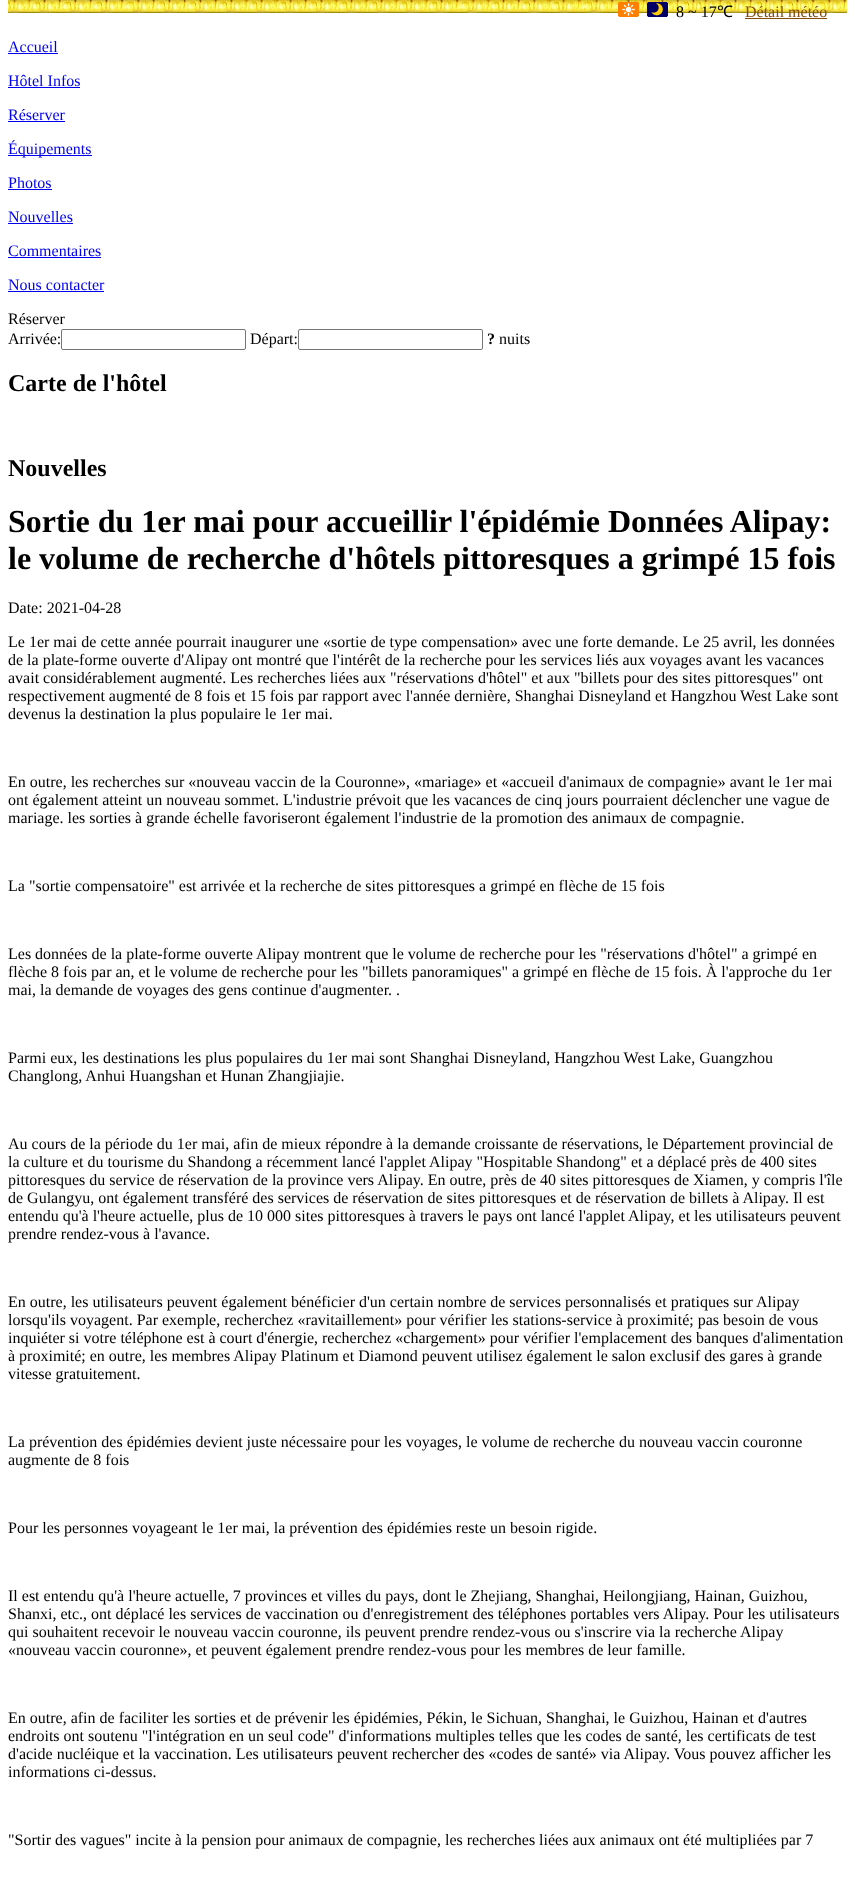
(async () => {
const canvas = document.querySelector("canvas")
canvas.width = 855
canvas.height = 1892
const c = canvas.getContext("2d")
c.miterLimit = 4
c.fontKerning = "normal"
function T(s,x,y){c.fillText(s,x,y)}
function R(x,y,w,h){c.fillRect(x,y,w,h)}
async function I(src,x,y,w,h){const img=new Image();img.src=src;await img.decode();c.drawImage(img,x,y,w,h)}
c.fillStyle="#fff"
R(0,0,855,1892)
await I("1.png",8,0,839,13)
await I("2.png",618,2,21,15)
await I("3.png",647,2,21,15)
c.font="16px Liberation Serif"
c.fillStyle="#000"
T("8 ~ 17",676,17)
c.font="16px Noto Sans"
T("℃",717,17)
c.font="16px Liberation Serif"
c.fillStyle="#844b0b"
T("Détail météo",745,17)
R(745,18,82,1)
c.fillStyle="#00e"
T("Accueil",8,52)
R(8,53,50,1)
T("Hôtel Infos",8,86)
R(8,87,72,1)
T("Réserver",8,120)
R(8,121,57,1)
R(8,155,84,1)
T("Équipements",8,154)
T("Photos",8,188)
R(8,189,44,1)
T("Nouvelles",8,222)
R(8,223,65,1)
T("Commentaires",8,256)
R(8,257,93,1)
T("Nous contacter",8,290)
R(8,291,96,1)
c.fillStyle="#000"
T("Réserver",8,324)
T("Arrivée:",8,344)
c.beginPath()
c.roundRect(61.5,329.5,184,20,1.5)
c.strokeStyle="#767676"
c.stroke()
T("Départ:",250,344)
c.beginPath()
c.roundRect(298.5,329.5,184,20,1.5)
c.stroke()
c.font="bold 16px Liberation Serif"
T("?",487,344)
c.font="16px Liberation Serif"
T("nuits",499,344)
c.font="bold 24px Liberation Serif"
T("Carte de l'hôtel",8,391)
T("Nouvelles",8,476)
c.font="bold 32px Liberation Serif"
T("Sortie du 1er mai pour accueillir l'épidémie Données Alipay:",8,532)
T("le volume de recherche d'hôtels pittoresques a grimpé 15 fois",8,569)
c.font="16px Liberation Serif"
T("Date: 2021-04-28",8,613)
T("Le 1er mai de cette année pourrait inaugurer une «sortie de type compensation» avec une forte demande. Le 25 avril, les données",8,647)
T("de la plate-forme ouverte d'Alipay ont montré que l'intérêt de la recherche pour les services liés aux voyages avant les vacances",8,665)
T("avait considérablement augmenté. Les recherches liées aux \"réservations d'hôtel\" et aux \"billets pour des sites pittoresques\" ont",8,683)
T("respectivement augmenté de 8 fois et 15 fois par rapport avec l'année dernière, Shanghai Disneyland et Hangzhou West Lake sont",8,701)
T("devenus la destination la plus populaire le 1er mai.",8,719)
T("En outre, les recherches sur «nouveau vaccin de la Couronne», «mariage» et «accueil d'animaux de compagnie» avant le 1er mai",8,787)
T("ont également atteint un nouveau sommet. L'industrie prévoit que les vacances de cinq jours pourraient déclencher une vague de",8,805)
T("mariage. les sorties à grande échelle favoriseront également l'industrie de la promotion des animaux de compagnie.",8,823)
T("La \"sortie compensatoire\" est arrivée et la recherche de sites pittoresques a grimpé en flèche de 15 fois",8,891)
T("Les données de la plate-forme ouverte Alipay montrent que le volume de recherche pour les \"réservations d'hôtel\" a grimpé en",8,959)
T("flèche 8 fois par an, et le volume de recherche pour les \"billets panoramiques\" a grimpé en flèche de 15 fois. À l'approche du 1er",8,977)
T("mai, la demande de voyages des gens continue d'augmenter. .",8,995)
T("Parmi eux, les destinations les plus populaires du 1er mai sont Shanghai Disneyland, Hangzhou West Lake, Guangzhou",8,1063)
T("Changlong, Anhui Huangshan et Hunan Zhangjiajie.",8,1081)
T("Au cours de la période du 1er mai, afin de mieux répondre à la demande croissante de réservations, le Département provincial de",8,1149)
T("la culture et du tourisme du Shandong a récemment lancé l'applet Alipay \"Hospitable Shandong\" et a déplacé près de 400 sites",8,1167)
T("pittoresques du service de réservation de la province vers Alipay. En outre, près de 40 sites pittoresques de Xiamen, y compris l'île",8,1185)
T("de Gulangyu, ont également transféré des services de réservation de sites pittoresques et de réservation de billets à Alipay. Il est",8,1203)
T("entendu qu'à l'heure actuelle, plus de 10 000 sites pittoresques à travers le pays ont lancé l'applet Alipay, et les utilisateurs peuvent",8,1221)
T("prendre rendez-vous à l'avance.",8,1239)
T("En outre, les utilisateurs peuvent également bénéficier d'un certain nombre de services personnalisés et pratiques sur Alipay",8,1307)
T("lorsqu'ils voyagent. Par exemple, recherchez «ravitaillement» pour vérifier les stations-service à proximité; pas besoin de vous",8,1325)
T("inquiéter si votre téléphone est à court d'énergie, recherchez «chargement» pour vérifier l'emplacement des banques d'alimentation",8,1343)
T("à proximité; en outre, les membres Alipay Platinum et Diamond peuvent utilisez également le salon exclusif des gares à grande",8,1361)
T("vitesse gratuitement.",8,1379)
T("La prévention des épidémies devient juste nécessaire pour les voyages, le volume de recherche du nouveau vaccin couronne",8,1447)
T("augmente de 8 fois",8,1465)
T("Pour les personnes voyageant le 1er mai, la prévention des épidémies reste un besoin rigide.",8,1533)
T("Il est entendu qu'à l'heure actuelle, 7 provinces et villes du pays, dont le Zhejiang, Shanghai, Heilongjiang, Hainan, Guizhou,",8,1601)
T("Shanxi, etc., ont déplacé les services de vaccination ou d'enregistrement des téléphones portables vers Alipay. Pour les utilisateurs",8,1619)
T("qui souhaitent recevoir le nouveau vaccin couronne, ils peuvent prendre rendez-vous ou s'inscrire via la recherche Alipay",8,1637)
T("«nouveau vaccin couronne», et peuvent également prendre rendez-vous pour les membres de leur famille.",8,1655)
T("En outre, afin de faciliter les sorties et de prévenir les épidémies, Pékin, le Sichuan, Shanghai, le Guizhou, Hainan et d'autres",8,1723)
T("endroits ont soutenu \"l'intégration en un seul code\" d'informations multiples telles que les codes de santé, les certificats de test",8,1741)
T("d'acide nucléique et la vaccination. Les utilisateurs peuvent rechercher des «codes de santé» via Alipay. Vous pouvez afficher les",8,1759)
T("informations ci-dessus.",8,1777)
T("\"Sortir des vagues\" incite à la pension pour animaux de compagnie, les recherches liées aux animaux ont été multipliées par 7",8,1845)
})()
